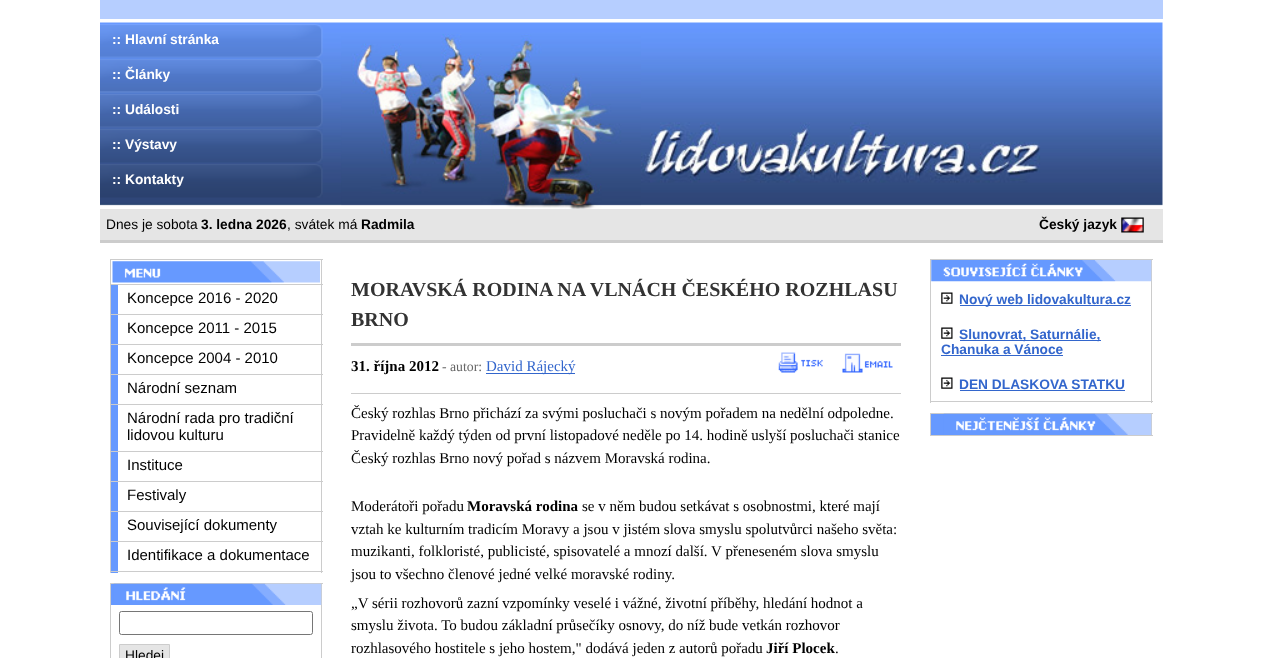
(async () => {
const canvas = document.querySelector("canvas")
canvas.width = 1261
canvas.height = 658
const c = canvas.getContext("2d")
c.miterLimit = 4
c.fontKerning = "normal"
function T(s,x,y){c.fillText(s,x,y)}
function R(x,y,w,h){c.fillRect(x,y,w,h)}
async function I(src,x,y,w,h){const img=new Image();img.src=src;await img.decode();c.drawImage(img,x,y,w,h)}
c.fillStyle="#fff"
R(0,0,1261,658)
c.fillStyle="#b6ceff"
R(100,0,1063,19)
await I("1.png",100,22,1063,184)
await I("2.png",100,24,223,34)
c.font="bold 13.75px Liberation Sans"
c.fillStyle="#fff"
T(":: Hlavní stránka",112,44)
await I("3.png",100,59,223,34)
T(":: Články",112,79)
await I("4.png",100,94,223,34)
T(":: Události",112,114)
await I("5.png",100,129,223,34)
T(":: Výstavy",112,149)
await I("6.png",100,164,223,34)
T(":: Kontakty",112,184)
await I("7.png",341,34,300,175)
c.fillStyle="#e5e5e5"
R(100,209,1063,31)
c.font="13.75px Liberation Sans"
c.fillStyle="#000"
T("Dnes je sobota",106,229)
c.font="bold 13.75px Liberation Sans"
T("3. ledna 2026",201,229)
c.font="13.75px Liberation Sans"
T(", svátek má",287,229)
c.font="bold 13.75px Liberation Sans"
T("Radmila",361,229)
T("Český jazyk",1039,229)
await I("8.png",1121,217,23,16)
c.fillStyle="#ccc"
R(100,240,1063,3)
R(110,259,213,1)
R(321,259,1,314)
c.fillStyle="#69f"
R(111,285,7,288)
c.fillStyle="#ccc"
R(110,571,213,1)
R(110,259,1,314)
await I("9.png",112,261,208,22)
R(110,284,213,1)
c.font="15px Liberation Sans"
c.fillStyle="#000"
T("Koncepce 2016 - 2020",127,303)
c.fillStyle="#ccc"
R(110,314,213,1)
c.fillStyle="#000"
T("Koncepce 2011 - 2015",127,333)
c.fillStyle="#ccc"
R(110,344,213,1)
c.fillStyle="#000"
T("Koncepce 2004 - 2010",127,363)
c.fillStyle="#ccc"
R(110,374,213,1)
c.fillStyle="#000"
T("Národní seznam",127,393)
c.fillStyle="#ccc"
R(110,404,213,1)
c.fillStyle="#000"
T("Národní rada pro tradiční",127,423)
T("lidovou kulturu",127,440)
c.fillStyle="#ccc"
R(110,451,213,1)
c.fillStyle="#000"
T("Instituce",127,470)
c.fillStyle="#ccc"
R(110,481,213,1)
c.fillStyle="#000"
T("Festivaly",127,500)
c.fillStyle="#ccc"
R(110,511,213,1)
c.fillStyle="#000"
T("Související dokumenty",127,530)
c.fillStyle="#ccc"
R(110,541,213,1)
c.fillStyle="#000"
T("Identifikace a dokumentace",127,560)
c.fillStyle="#ccc"
R(110,583,213,1)
R(321,583,1,75)
R(110,583,1,75)
c.fillStyle="#69f"
R(111,584,3,21)
await I("10.png",113,583,209,22)
c.beginPath()
c.roundRect(119.5,611.5,193,23,2)
c.strokeStyle="#767676"
c.stroke()
c.fillStyle="#e5e5e5"
c.beginPath()
c.rect(119.5,644.5,50,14)
c.fill()
c.strokeStyle="#ccc"
c.stroke()
c.font="13.75px Liberation Sans"
c.fillStyle="#000"
T("Hledej",125,660)
c.font="bold 20px Liberation Serif"
c.fillStyle="#333"
T("MORAVSKÁ RODINA NA VLNÁCH ČESKÉHO ROZHLASU",351,296)
T("BRNO",351,326)
c.fillStyle="#ccc"
R(351,343,550,3)
c.font="bold 15px Liberation Serif"
c.fillStyle="#000"
T("31. října 2012",351,371)
c.font="13.75px Liberation Serif"
c.fillStyle="#666"
T("- autor:",442,371)
c.fillStyle="#36c"
R(486,373,89,1)
c.font="15px Liberation Serif"
T("David Rájecký",486,371)
await I("11.png",778,352,45,21)
await I("12.png",842,353,51,20)
c.fillStyle="#ccc"
R(351,393,550,1)
c.fillStyle="#000"
T("Český rozhlas Brno přichází za svými posluchači s novým pořadem na nedělní odpoledne.",351,418)
T("Pravidelně každý týden od první listopadové neděle po 14. hodině uslyší posluchači stanice",351,440)
T("Český rozhlas Brno nový pořad s názvem Moravská rodina.",351,463)
T("Moderátoři pořadu",351,511)
c.font="bold 15px Liberation Serif"
T("Moravská rodina",467,511)
c.font="15px Liberation Serif"
T("se v něm budou setkávat s osobnostmi, které mají",582,511)
T("vztah ke kulturním tradicím Moravy a jsou v jistém slova smyslu spolutvůrci našeho světa:",351,534)
T("muzikanti, folkloristé, publicisté, spisovatelé a mnozí další. V přeneseném slova smyslu",351,556)
T("jsou to všechno členové jedné velké moravské rodiny.",351,579)
T("„V sérii rozhovorů zazní vzpomínky veselé i vážné, životní příběhy, hledání hodnot a",351,608)
T("smyslu života. To budou základní průsečíky osnovy, do níž bude vetkán rozhovor",351,630)
T("rozhlasového hostitele s jeho hostem,\" dodává jeden z autorů pořadu",351,653)
c.font="bold 15px Liberation Serif"
T("Jiří Plocek",766,653)
c.font="15px Liberation Serif"
T(".",835,653)
c.fillStyle="#ccc"
R(930,259,223,1)
R(1151,259,1,144)
R(930,401,223,1)
R(930,259,1,144)
await I("13.png",931,260,221,22)
await I("14.png",941,292,12,12)
c.fillStyle="#36c"
R(960,305,171,1)
c.font="bold 13.75px Liberation Sans"
T("Nový web lidovakultura.cz",959,304)
await I("15.png",941,327,12,12)
R(960,340,141,1)
T("Slunovrat, Saturnálie,",959,339)
T("Chanuka a Vánoce",941,354)
R(941,355,122,1)
await I("15.png",941,377,12,12)
T("DEN DLASKOVA STATKU",959,389)
R(960,390,165,1)
c.fillStyle="#ccc"
R(930,413,223,1)
R(1151,413,1,23)
R(930,435,223,1)
R(930,413,1,23)
c.fillStyle="#69f"
R(931,414,13,21)
await I("16.png",943,413,209,22)
})()
